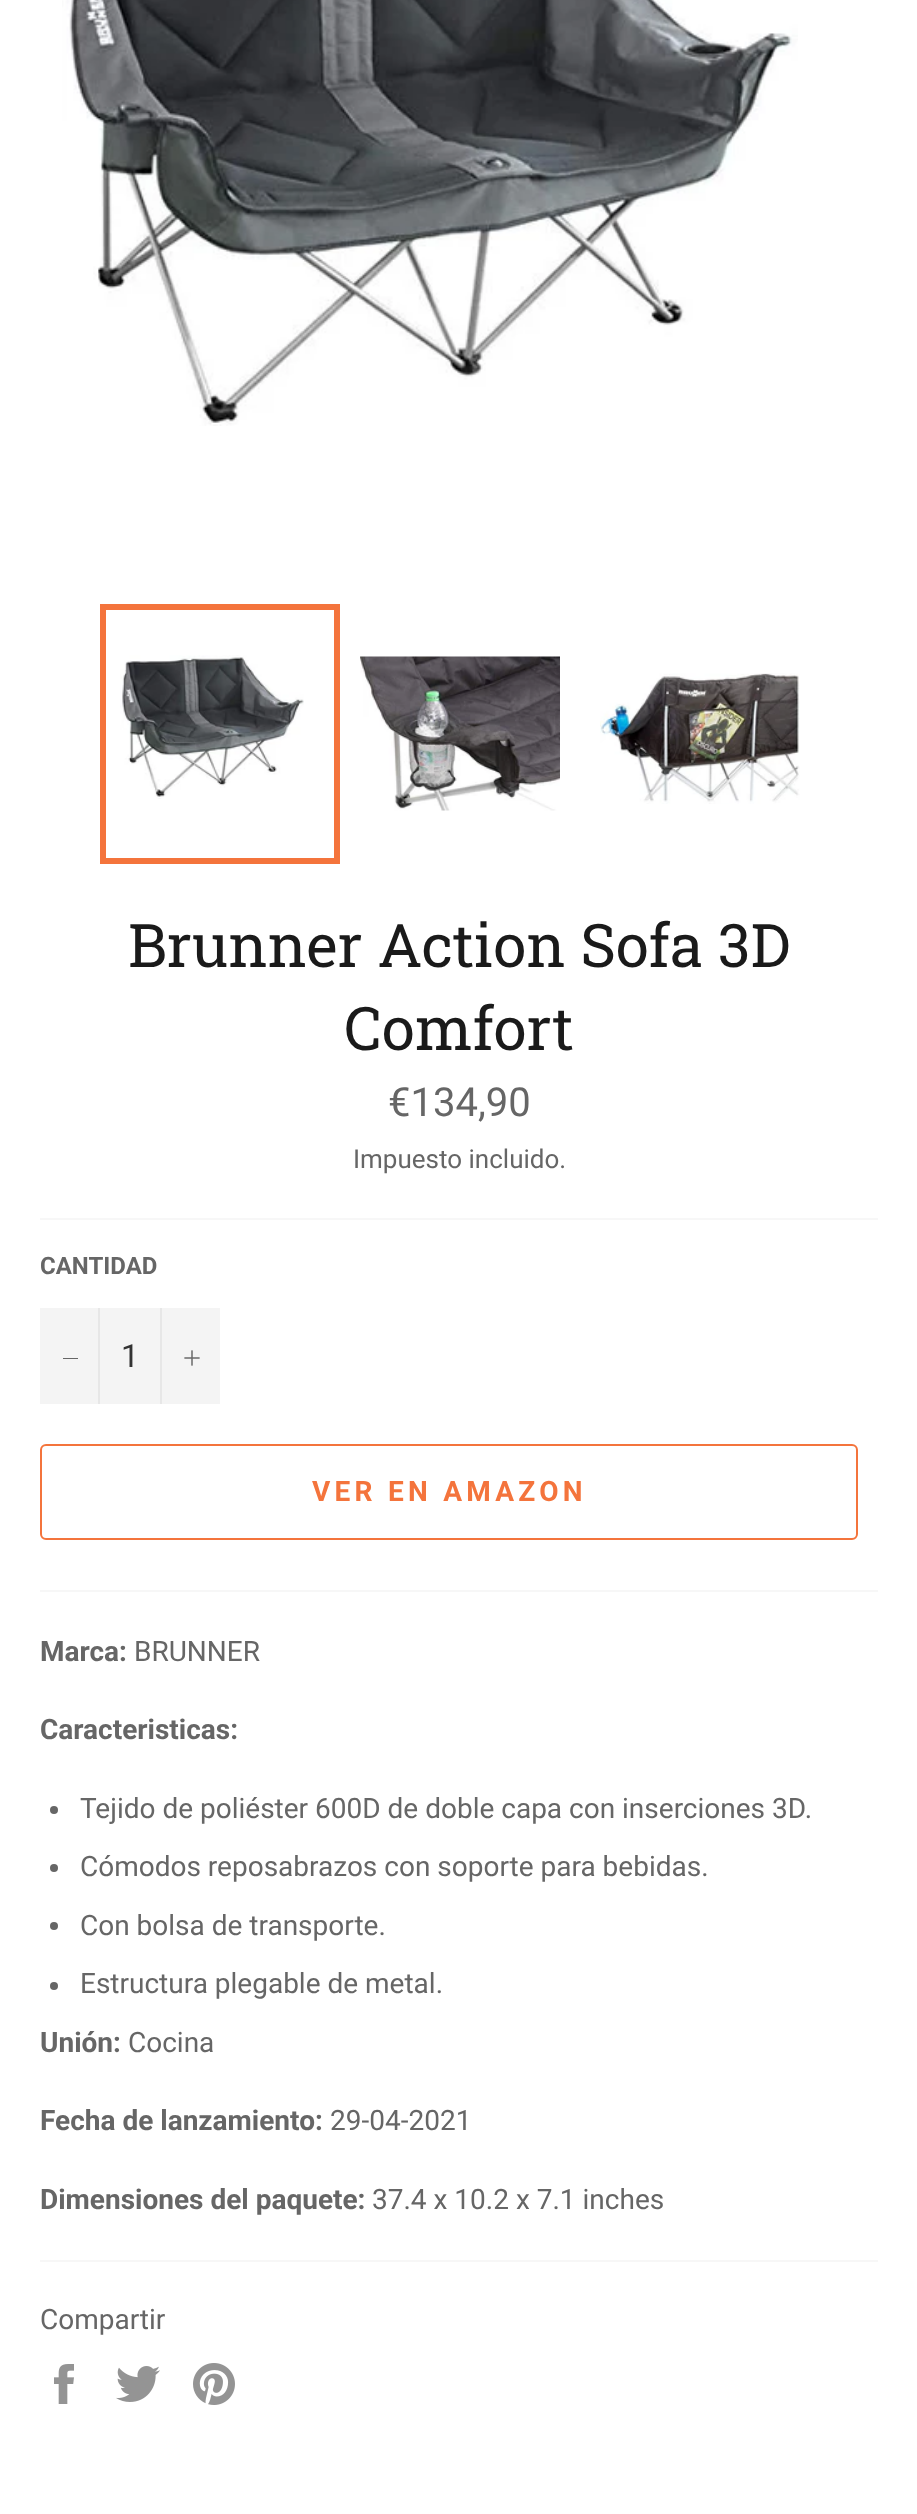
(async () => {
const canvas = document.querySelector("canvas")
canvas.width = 917
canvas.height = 2514
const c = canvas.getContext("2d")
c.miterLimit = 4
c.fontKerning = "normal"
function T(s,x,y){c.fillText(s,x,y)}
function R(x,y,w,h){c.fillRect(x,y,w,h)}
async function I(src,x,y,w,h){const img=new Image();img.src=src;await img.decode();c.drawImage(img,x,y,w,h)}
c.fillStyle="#fff"
R(0,0,917,2514)
await I("1.png",62,0,736,426)
await I("2.png",120,655,184,144)
c.strokeStyle="#f4743c"
c.lineWidth=6
c.strokeRect(103,607,234,254)
await I("3.png",360,656,200,155)
await I("4.png",600,673,200,131)
c.font="60px Roboto Slab"
c.fillStyle="#1a1a1a"
T("Brunner Action Sofa 3D",128,967)
T("Comfort",344,1050)
c.font="40px Roboto"
c.fillStyle="#666"
T("€134,90",388,1116)
c.font="26px Roboto"
T("Impuesto incluido.",353,1168)
c.fillStyle="#f7f7f7"
R(40,1218,838,2)
c.font="bold 24px Roboto"
c.fillStyle="#666"
T("CANTIDAD",40,1274)
c.fillStyle="#f4f4f4"
R(40,1308,180,96)
c.fillStyle="#e7e7e7"
R(98,1308,2,96)
c.fillStyle="#666"
R(63,1358,15,1)
c.font="32px Roboto"
c.fillStyle="#333"
T("1",121,1367)
c.fillStyle="#e7e7e7"
R(160,1308,2,96)
await I("5.png",184,1350,16,16)
c.beginPath()
c.roundRect(41,1445,816,94,5)
c.lineWidth=2
c.stroke()
c.letterSpacing="4.25px"
c.font="bold 28px Roboto"
c.fillStyle="#f4743c"
T("VER EN AMAZON",312,1501)
c.fillStyle="#f7f7f7"
R(40,1590,838,2)
c.letterSpacing="0px"
c.fillStyle="#666"
T("Marca:",40,1661)
c.font="28px Roboto"
T("BRUNNER",134,1661)
c.font="bold 28px Roboto"
T("Caracteristicas:",40,1739)
c.beginPath()
c.arc(54,1810,4,0,7)
c.fill()
c.font="28px Roboto"
T("Tejido de poliéster 600D de doble capa con inserciones 3D.",80,1818)
c.beginPath()
c.arc(54,1868,4,0,7)
c.fill()
T("Cómodos reposabrazos con soporte para bebidas.",80,1876)
c.beginPath()
c.arc(54,1926,4,0,7)
c.fill()
T("Con bolsa de transporte.",80,1935)
c.beginPath()
c.arc(54,1986,4,0,7)
c.fill()
T("Estructura plegable de metal.",80,1993)
c.font="bold 28px Roboto"
T("Unión:",40,2052)
c.font="28px Roboto"
T("Cocina",128,2052)
c.font="bold 28px Roboto"
T("Fecha de lanzamiento:",40,2130)
c.font="28px Roboto"
T("29-04-2021",330,2130)
c.font="bold 28px Roboto"
T("Dimensiones del paquete:",40,2209)
c.font="28px Roboto"
T("37.4 x 10.2 x 7.1 inches",372,2209)
c.fillStyle="#f7f7f7"
R(40,2260,838,2)
c.fillStyle="#666"
T("Compartir",40,2329)
await I("6.png",54,2364,20,40)
await I("7.png",116,2366,44,36)
await I("8.png",193,2363,42,42)
})()
